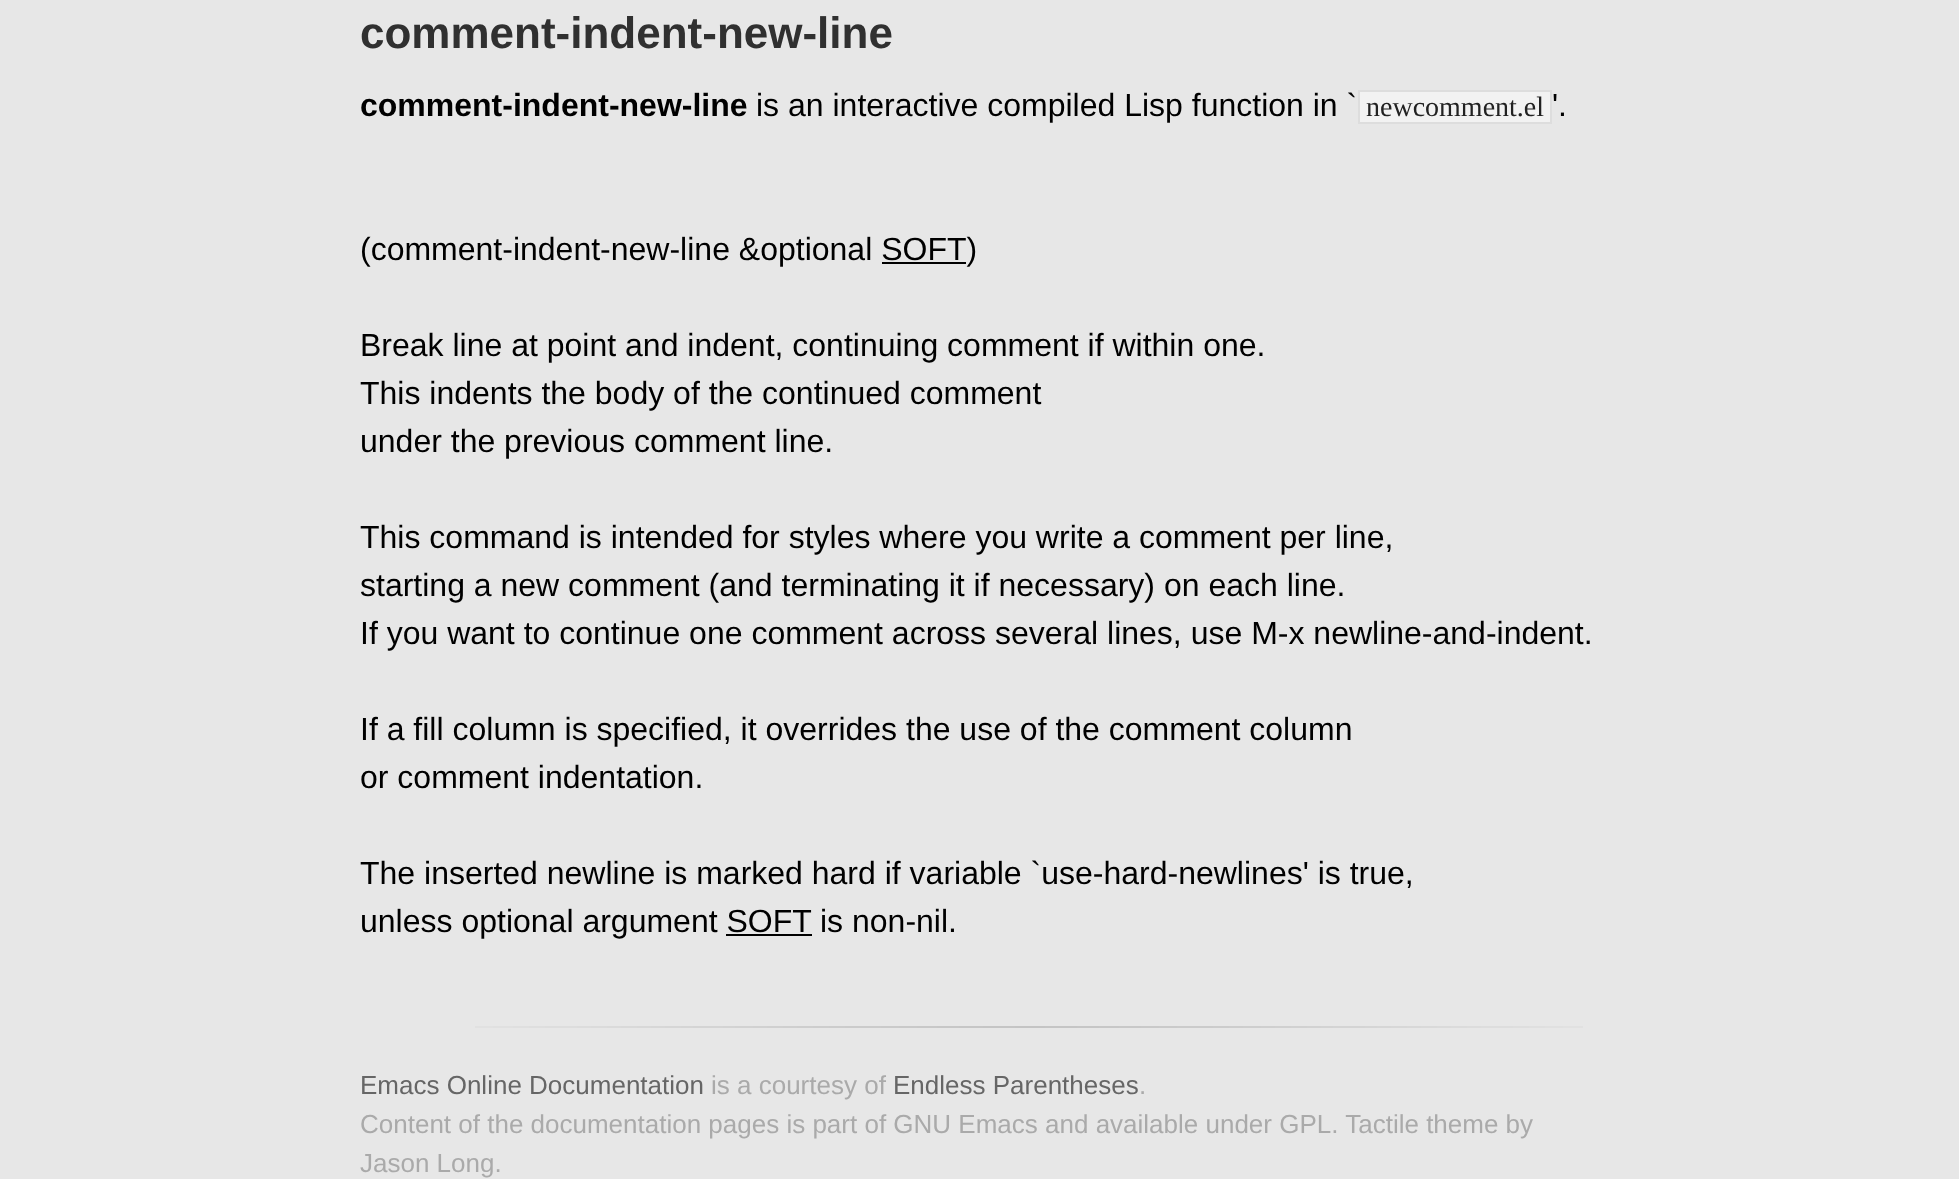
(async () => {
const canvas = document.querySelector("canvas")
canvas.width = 1959
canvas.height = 1179
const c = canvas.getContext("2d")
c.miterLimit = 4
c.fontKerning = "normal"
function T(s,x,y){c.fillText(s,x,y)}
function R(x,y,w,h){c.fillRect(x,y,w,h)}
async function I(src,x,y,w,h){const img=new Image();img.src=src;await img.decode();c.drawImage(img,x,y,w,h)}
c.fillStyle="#e7e7e7"
R(0,0,1959,1179)
c.font="bold 44px Liberation Sans"
c.fillStyle="#303030"
T("comment-indent-new-line",360,48)
c.font="bold 32px Liberation Sans"
c.fillStyle="#000"
T("comment-indent-new-line",360,116)
c.font="32px Liberation Sans"
T("is an interactive compiled Lisp function in `",756,116)
c.fillStyle="#f2f2f2"
c.beginPath()
c.rect(1359,91,192,32)
c.fill()
c.strokeStyle="#ddd"
c.lineWidth=2
c.stroke()
c.font="28px Liberation Serif"
c.fillStyle="#222"
T("newcomment.el",1366,116)
c.font="32px Liberation Sans"
c.fillStyle="#000"
T("'.",1552,116)
T("(comment-indent-new-line &optional SOFT)",360,260)
R(882,262,84,2)
T("Break line at point and indent, continuing comment if within one.",360,356)
T("This indents the body of the continued comment",360,404)
T("under the previous comment line.",360,452)
T("This command is intended for styles where you write a comment per line,",360,548)
T("starting a new comment (and terminating it if necessary) on each line.",360,596)
T("If you want to continue one comment across several lines, use M-x newline-and-indent.",360,644)
T("If a fill column is specified, it overrides the use of the comment column",360,740)
T("or comment indentation.",360,788)
T("The inserted newline is marked hard if variable `use-hard-newlines' is true,",360,884)
T("unless optional argument SOFT",360,932)
T("is non-nil.",820,932)
R(726,934,86,2)
await I("1.png",475,1026,1108,2)
c.font="26px Liberation Sans"
c.fillStyle="#666"
T("Emacs Online Documentation",360,1094)
c.fillStyle="#aaa"
T("is a courtesy of",711,1094)
c.fillStyle="#666"
T("Endless Parentheses",893,1094)
c.fillStyle="#aaa"
T(".",1139,1094)
T("Content of the documentation pages is part of GNU Emacs and available under GPL. Tactile theme by",360,1133)
T("Jason Long.",360,1172)
})()
